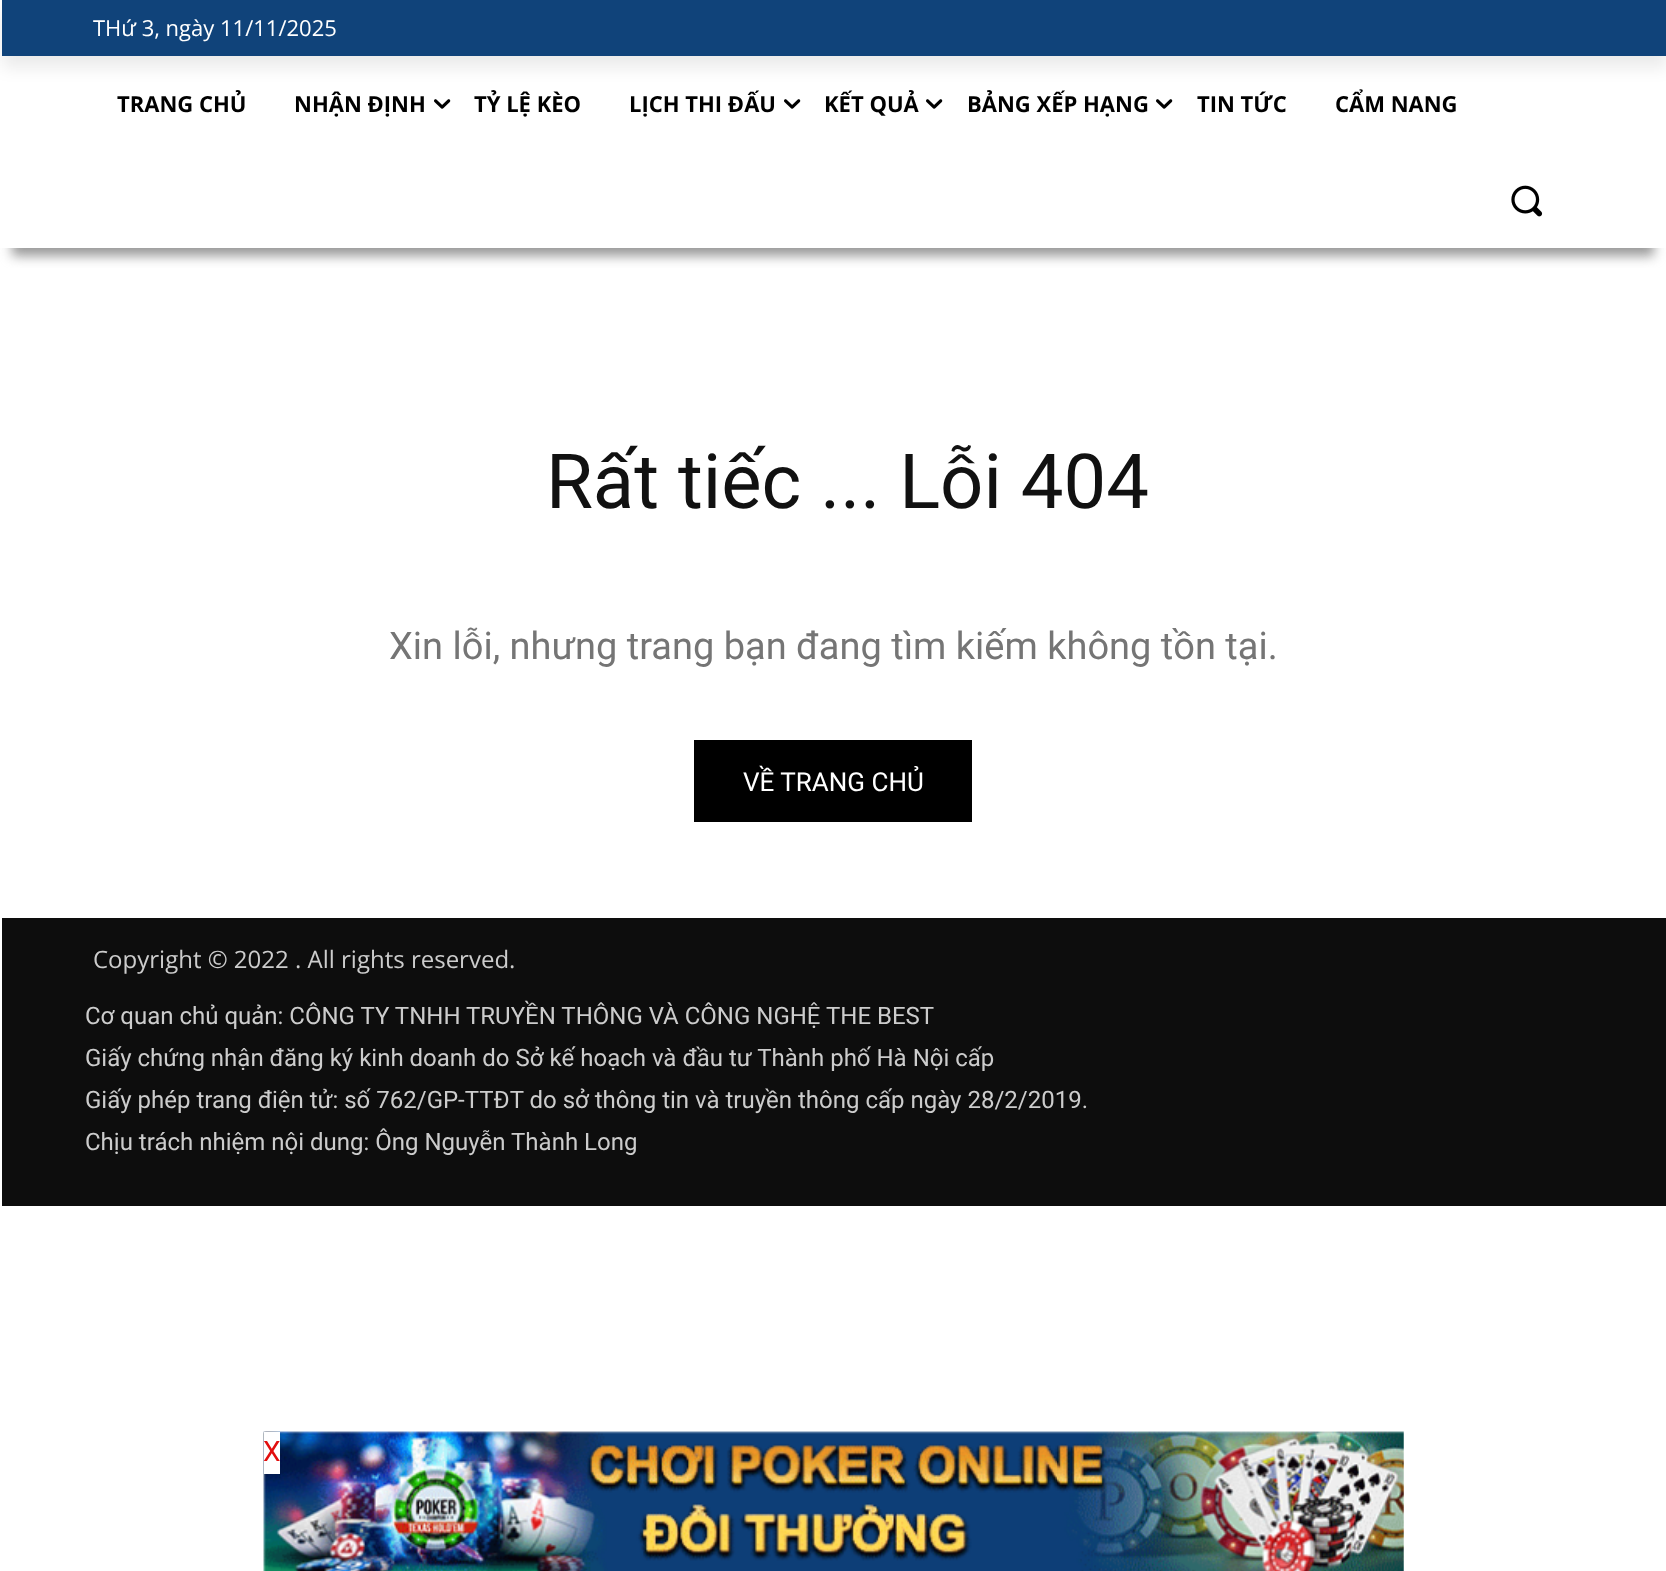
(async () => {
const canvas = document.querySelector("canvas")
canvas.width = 1666
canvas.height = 1571
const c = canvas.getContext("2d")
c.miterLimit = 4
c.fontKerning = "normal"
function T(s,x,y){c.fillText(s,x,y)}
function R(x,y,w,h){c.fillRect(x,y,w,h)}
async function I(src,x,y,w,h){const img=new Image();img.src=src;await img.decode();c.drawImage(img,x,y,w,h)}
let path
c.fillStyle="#fff"
R(0,0,1666,1571)
c.save()
c.beginPath()
c.rect(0,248,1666,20)
c.clip()
c.fillStyle="#999"
c.filter="blur(6px)"
c.beginPath()
c.rect(12,32,1642,224)
c.fill()
c.filter="none"
c.restore()
c.fillStyle="#10437a"
R(2,0,1664,56)
c.save()
path = new Path2D("M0 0h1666v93h-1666zm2 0h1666v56h-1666z")
c.clip(path,"evenodd")
c.fillStyle="#00000014"
c.filter="blur(8px)"
c.beginPath()
c.rect(2,12,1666,56)
c.fill()
c.filter="none"
c.restore()
c.font="22px Open Sans"
c.fillStyle="#fff"
T("THứ 3, ngày 11/11/2025",93,36)
c.font="bold 22px Open Sans"
c.fillStyle="#000"
T("TRANG CHỦ",117,112)
T("NHẬN ĐỊNH",294,112)
await I("1.png",434,99,17,10)
T("TỶ LỆ KÈO",474,112)
T("LỊCH THI ĐẤU",629,112)
await I("1.png",784,99,17,10)
T("KẾT QUẢ",824,112)
await I("1.png",926,99,17,10)
T("BẢNG XẾP HẠNG",967,112)
await I("1.png",1156,99,17,10)
T("TIN TỨC",1197,112)
T("CẨM NANG",1335,112)
await I("2.png",1511,185,32,32)
c.font="76px Roboto"
c.fillStyle="#111"
T("Rất tiếc ... Lỗi 404",546,508)
c.font="38px Roboto"
c.fillStyle="#757575"
T("Xin lỗi, nhưng trang bạn đang tìm kiếm không tồn tại.",389,659)
c.fillStyle="#000"
R(694,740,278,82)
c.font="26px Roboto"
c.fillStyle="#fff"
T("VỀ TRANG CHỦ",743,791)
c.fillStyle="#0d0d0d"
R(2,918,1664,288)
c.font="24px Open Sans"
c.fillStyle="#ccc"
T("Copyright © 2022 . All rights reserved.",93,968)
c.font="24px Roboto"
T("Cơ quan chủ quản: CÔNG TY TNHH TRUYỀN THÔNG VÀ CÔNG NGHỆ THE BEST",85,1024)
T("Giấy chứng nhận đăng ký kinh doanh do Sở kế hoạch và đầu tư Thành phố Hà Nội cấp",85,1066)
T("Giấy phép trang điện tử: số 762/GP-TTĐT do sở thông tin và truyền thông cấp ngày 28/2/2019.",85,1108)
T("Chịu trách nhiệm nội dung: Ông Nguyễn Thành Long",85,1150)
await I("3.png",263,1431,1141,140)
c.fillStyle="#fff"
R(264,1432,16,42)
c.font="28px Roboto"
c.fillStyle="#e20e0e"
T("X",263,1461)
})()
